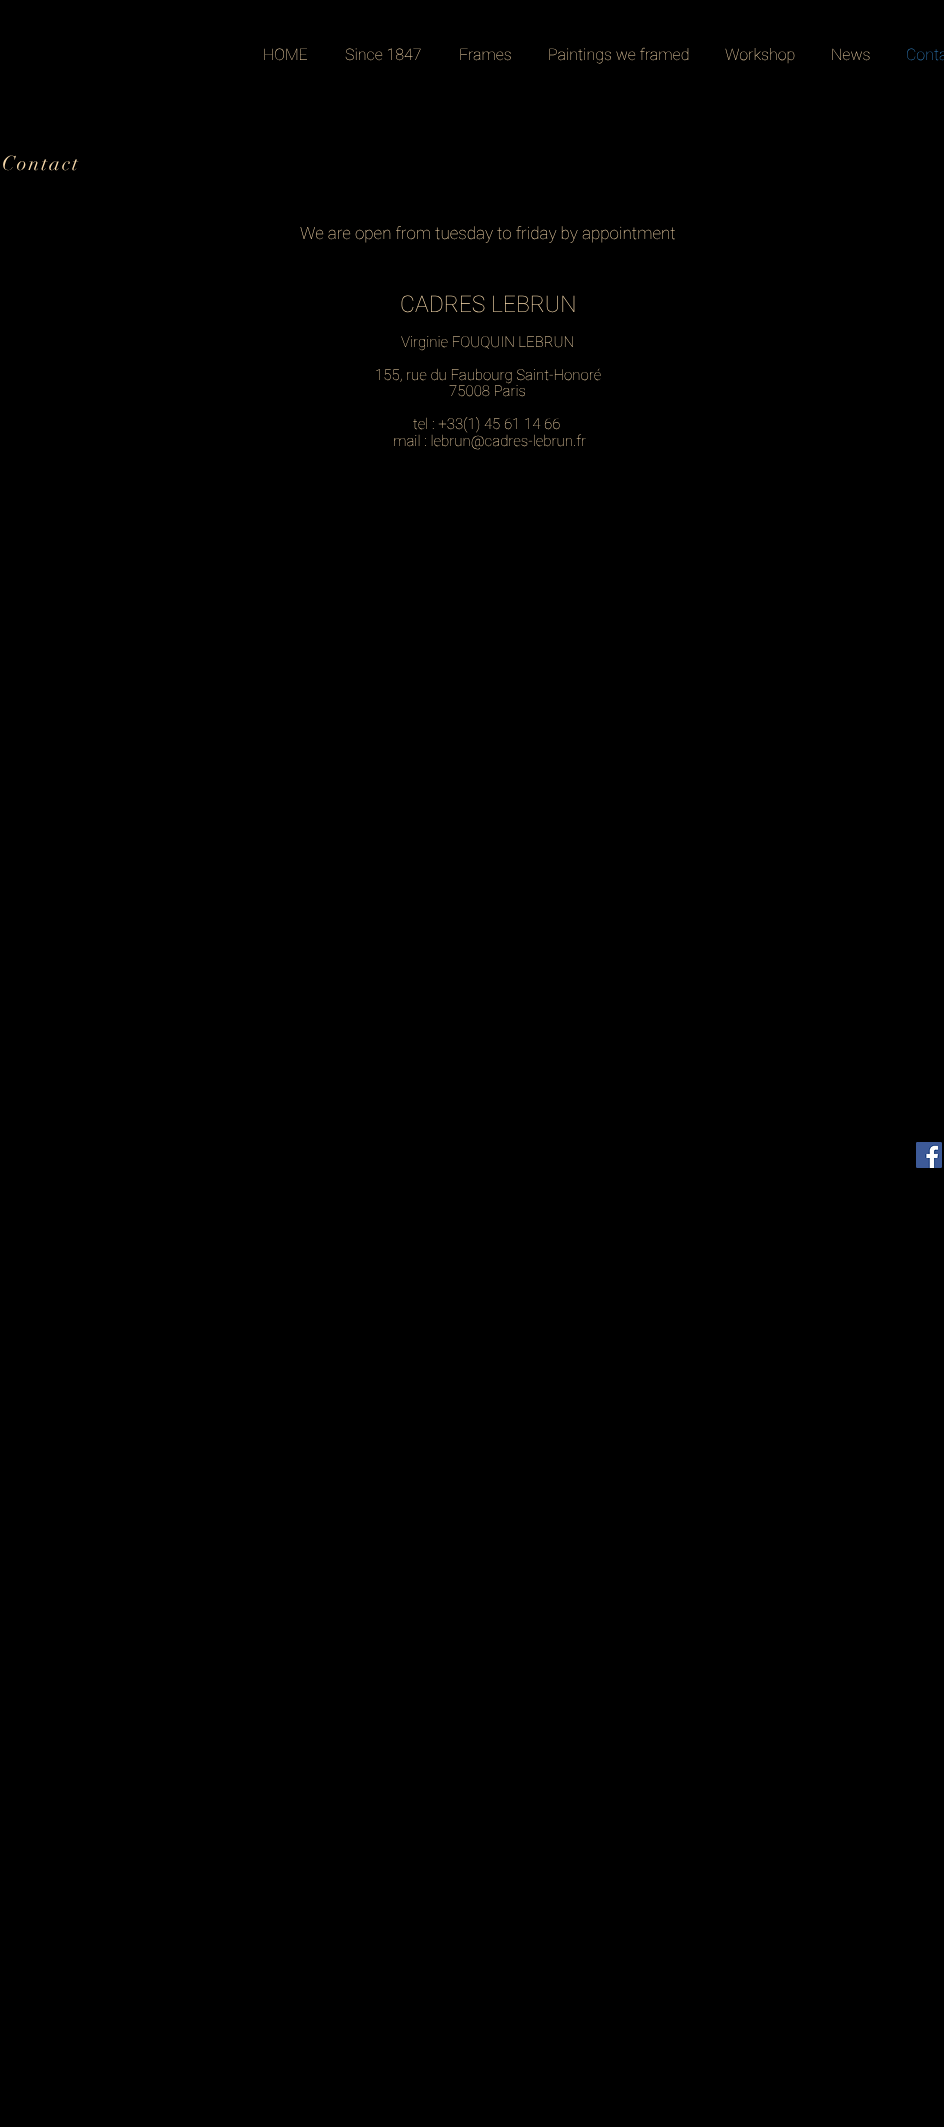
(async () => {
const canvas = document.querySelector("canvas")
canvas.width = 944
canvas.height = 2127
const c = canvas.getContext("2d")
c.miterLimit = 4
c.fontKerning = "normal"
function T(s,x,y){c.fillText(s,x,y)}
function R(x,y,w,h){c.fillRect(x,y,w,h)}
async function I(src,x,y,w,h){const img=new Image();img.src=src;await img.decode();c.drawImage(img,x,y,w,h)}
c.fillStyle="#000"
R(0,0,944,2127)
c.font="100 16px Roboto"
c.fillStyle="#f8daac"
T("HOME",263,60)
T("Since 1847",345,60)
T("Frames",459,60)
T("Paintings we framed",548,60)
T("Workshop",725,60)
T("News",831,60)
c.fillStyle="#3588cc"
T("Conta",906,60)
c.letterSpacing="2px"
c.font="20px didot"
c.fillStyle="#f8daac"
T("Contact",2,170)
c.letterSpacing="0px"
c.font="100 17px Roboto"
T("We are open from tuesday to friday by appointment",300,239)
c.font="100 23px Roboto"
T("CADRES LEBRUN",400,312)
c.font="100 15px Roboto"
T("Virginie FOUQUIN LEBRUN",401,347)
T("155, rue du Faubourg Saint-Honoré",375,380)
T("75008 Paris",449,396)
T("tel : +33(1) 45 61 14 66",413,429)
T("mail : lebrun@cadres-lebrun.fr",393,446)
await I("1.png",916,1142,26,26)
})()
